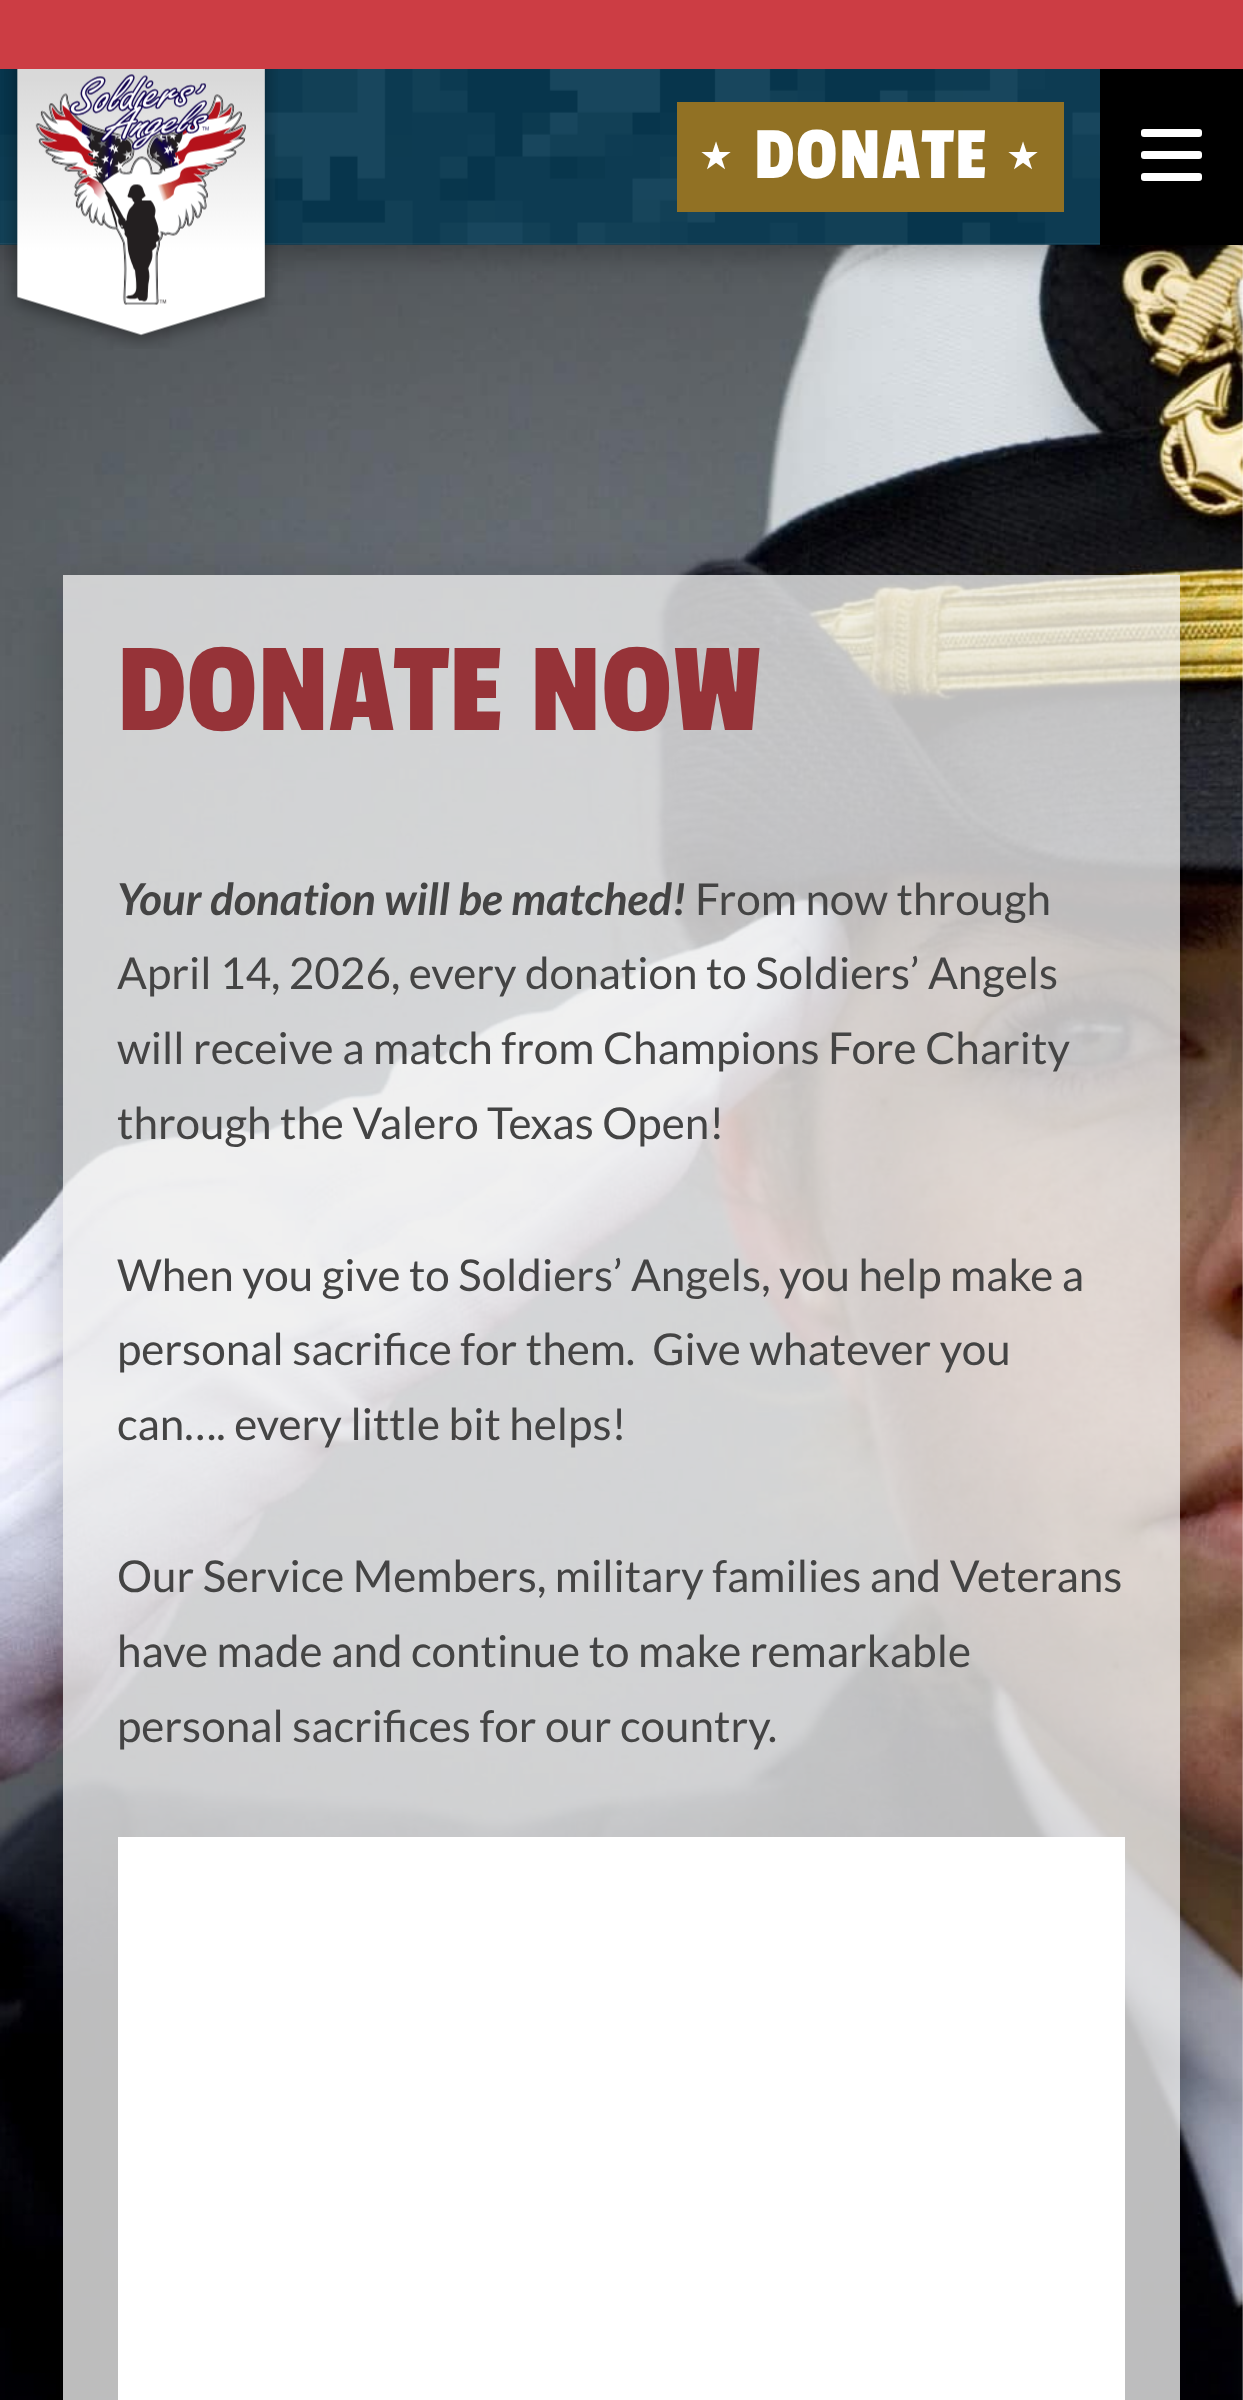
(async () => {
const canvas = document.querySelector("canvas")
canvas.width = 1243
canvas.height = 2400
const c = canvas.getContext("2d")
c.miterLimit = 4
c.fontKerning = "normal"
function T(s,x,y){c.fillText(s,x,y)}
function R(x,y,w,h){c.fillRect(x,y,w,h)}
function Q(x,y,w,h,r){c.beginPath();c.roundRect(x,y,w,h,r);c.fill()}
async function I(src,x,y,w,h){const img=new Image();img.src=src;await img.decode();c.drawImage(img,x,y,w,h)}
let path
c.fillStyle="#fff"
R(0,0,1243,2400)
await I("4.png",0,244,1243,2156)
c.fillStyle="#00000040"
c.filter="blur(14px)"
c.beginPath()
c.rect(0,80,1243,176)
c.fill()
c.filter="none"
c.fillStyle="#cc3d44"
R(0,0,1243,69)
await I("1.png",0,69,1100,176)
await I("2.png",4,69,274,280)
await I("3.png",35,74,211,231)
c.fillStyle="#917124"
R(677,102,387,110)
c.letterSpacing="1.5px"
c.font="38px DejaVu Sans"
c.fillStyle="#fff"
T("★",699,169)
c.font="77px Passion One"
T("DONATE",754,178)
c.font="38px DejaVu Sans"
T("★",1006,169)
c.fillStyle="#000"
R(1100,69,143,176)
c.fillStyle="#fff"
Q(1141,129,61,8,3)
Q(1141,151,61,8,3)
Q(1141,173,61,8,3)
c.save()
path = new Path2D("M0 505h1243v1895h-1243zm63 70h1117v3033h-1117z")
c.clip(path,"evenodd")
c.fillStyle="#00000033"
c.filter="blur(27.5px)"
c.beginPath()
c.rect(63,589,1117,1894)
c.fill()
c.filter="none"
c.restore()
c.fillStyle="#ecececcc"
R(63,575,1117,1825)
c.letterSpacing="0px"
c.font="132px Passion One"
c.fillStyle="#963338"
T("DONATE NOW",117,730)
c.font="italic bold 44px Lato"
c.fillStyle="#444"
T("Your donation will be matched!",117,915)
c.font="44px Lato"
T("From now through",695,915)
T("April 14, 2026, every donation to Soldiers’ Angels",117,989)
T("will receive a match from Champions Fore Charity",117,1064)
T("through the Valero Texas Open!",117,1139)
T("When you give to Soldiers’ Angels, you help make a",117,1291)
T("personal sacrifice for them.  Give whatever you",117,1365)
T("can…. every little bit helps!",117,1440)
T("Our Service Members, military families and Veterans",117,1592)
T("have made and continue to make remarkable",117,1667)
T("personal sacrifices for our country.",117,1742)
c.fillStyle="#fff"
R(118,1837,1007,563)
})()
